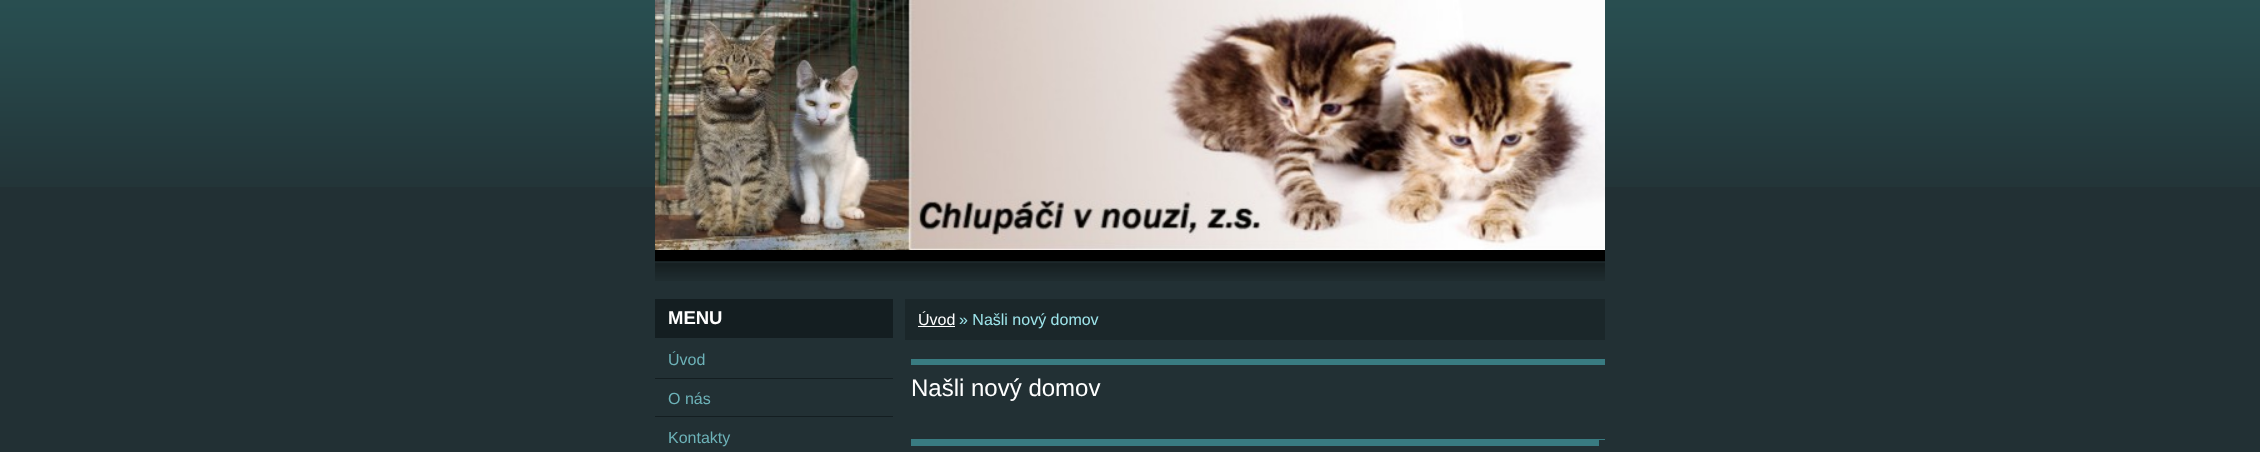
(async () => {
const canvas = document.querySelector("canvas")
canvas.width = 2260
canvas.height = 452
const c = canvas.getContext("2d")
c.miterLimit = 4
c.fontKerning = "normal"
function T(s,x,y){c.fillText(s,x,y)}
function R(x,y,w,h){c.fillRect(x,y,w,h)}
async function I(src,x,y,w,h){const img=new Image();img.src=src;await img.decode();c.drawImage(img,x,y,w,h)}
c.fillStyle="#223034"
R(0,0,2260,452)
await I("1.png",0,0,2260,187)
await I("2.png",655,250,950,31)
await I("3.png",655,0,950,250)
c.fillStyle="#141e21"
R(655,299,238,39)
c.font="bold 18.5px Liberation Sans"
c.fillStyle="#fff"
T("MENU",668,324)
c.fillStyle="#141e21"
R(655,378,238,1)
c.font="16px Liberation Sans"
c.fillStyle="#6db2b8"
T("Úvod",668,365)
c.fillStyle="#141e21"
R(655,416,238,1)
c.fillStyle="#6db2b8"
T("O nás",668,404)
T("Kontakty",668,443)
c.fillStyle="#1b272a"
R(905,299,700,41)
c.fillStyle="#fff"
T("Úvod",918,325)
R(918,326,37,1)
c.fillStyle="#9ee5eb"
T("» Našli nový domov",959,325)
c.fillStyle="#397b81"
R(911,359,694,6)
c.font="24px Liberation Sans"
c.fillStyle="#fff"
T("Našli nový domov",911,396)
c.fillStyle="#397b81"
R(911,439,694,1)
R(911,440,688,6)
})()
